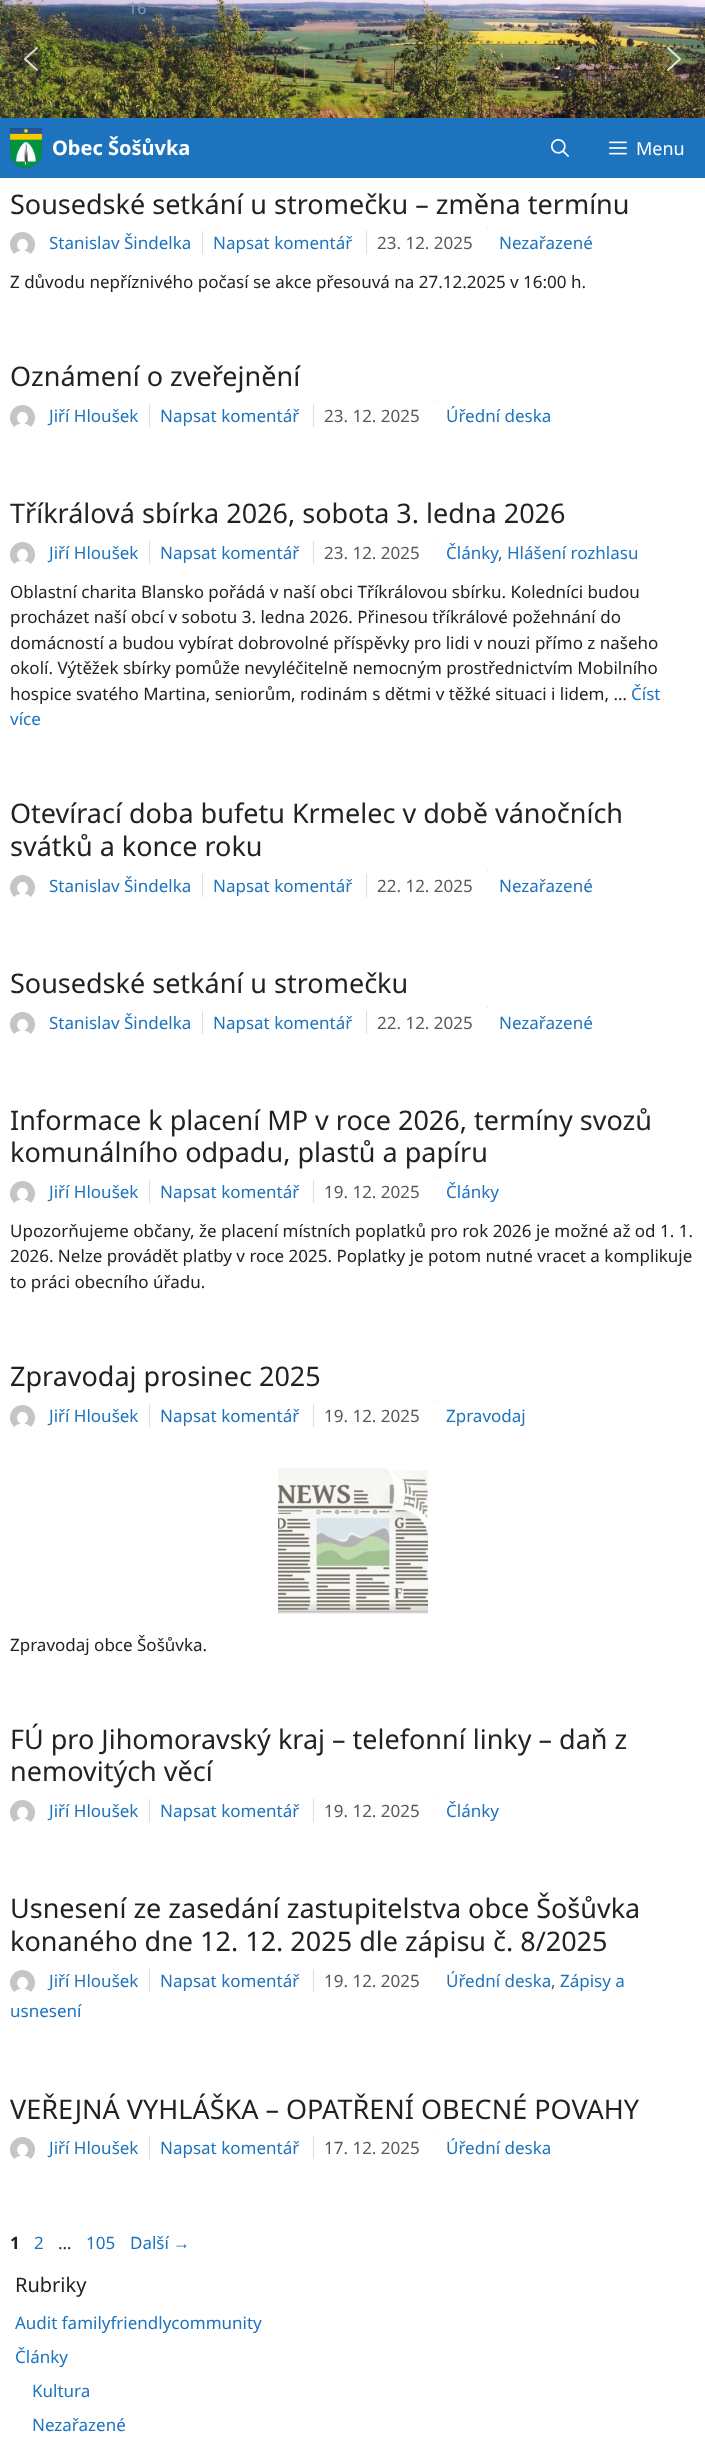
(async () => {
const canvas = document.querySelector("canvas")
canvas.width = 705
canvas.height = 2450
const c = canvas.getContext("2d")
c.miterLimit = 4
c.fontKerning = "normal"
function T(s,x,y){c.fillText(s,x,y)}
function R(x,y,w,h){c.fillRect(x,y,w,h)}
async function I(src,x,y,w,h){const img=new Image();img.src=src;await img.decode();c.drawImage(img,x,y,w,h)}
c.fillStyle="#1e73be"
R(0,0,705,2450)
await I("1.png",0,0,705,118)
c.font="16px Noto Sans"
c.fillStyle="#9196b1"
T("16",128,14)
T("_",211,14)
T("_",364,14)
T("_",545,14)
await I("2.png",24,47,14,24)
await I("3.png",667,47,14,24)
await I("4.png",10,128,32,40)
c.font="bold 20px Noto Sans"
c.fillStyle="#fff"
T("Obec Šošůvka",52,155)
await I("5.png",551,139,18,18)
await I("6.png",609,141,18,14)
c.font="18px Noto Sans"
T("Menu",636,155)
R(0,178,705,2272)
c.font="27px Noto Sans"
c.fillStyle="#222"
T("Sousedské setkání u stromečku – změna termínu",10,214)
await I("7.png",10,232,25,22)
c.font="17px Noto Sans"
c.fillStyle="#1e73be"
T("Stanislav Šindelka",49,249)
T("Napsat komentář",213,249)
c.fillStyle="#ddd"
R(202,231,1,23)
c.fillStyle="#595959"
T("23. 12. 2025",377,249)
c.fillStyle="#ddd"
R(366,231,1,23)
c.fillStyle="#1e73be"
T("Nezařazené",499,249)
c.fillStyle="#ddd"
R(487,227,1,1)
c.fillStyle="#222"
T("Z důvodu nepříznivého počasí se akce přesouvá na 27.12.2025 v 16:00 h.",10,288)
c.font="27px Noto Sans"
T("Oznámení o zveřejnění",10,386)
await I("7.png",10,405,25,22)
c.font="17px Noto Sans"
c.fillStyle="#1e73be"
T("Jiří Hloušek",49,422)
T("Napsat komentář",160,422)
c.fillStyle="#ddd"
R(149,404,1,23)
c.fillStyle="#595959"
T("23. 12. 2025",324,422)
c.fillStyle="#ddd"
R(313,404,1,23)
c.fillStyle="#1e73be"
T("Úřední deska",446,422)
c.fillStyle="#ddd"
R(434,400,1,1)
c.font="27px Noto Sans"
c.fillStyle="#222"
T("Tříkrálová sbírka 2026, sobota 3. ledna 2026",10,523)
await I("7.png",10,542,25,22)
c.font="17px Noto Sans"
c.fillStyle="#1e73be"
T("Jiří Hloušek",49,559)
T("Napsat komentář",160,559)
c.fillStyle="#ddd"
R(149,541,1,23)
c.fillStyle="#595959"
T("23. 12. 2025",324,559)
c.fillStyle="#ddd"
R(313,541,1,23)
c.fillStyle="#1e73be"
T("Články",446,559)
c.fillStyle="#ddd"
R(434,537,1,1)
c.fillStyle="#595959"
T(",",498,559)
c.fillStyle="#1e73be"
T("Hlášení rozhlasu",507,559)
c.fillStyle="#222"
T("Oblastní charita Blansko pořádá v naší obci Tříkrálovou sbírku. Koledníci budou",10,598)
T("procházet naší obcí v sobotu 3. ledna 2026. Přinesou tříkrálové požehnání do",10,623)
T("domácností a budou vybírat dobrovolné příspěvky pro lidi v nouzi přímo z našeho",10,649)
T("okolí. Výtěžek sbírky pomůže nevyléčitelně nemocným prostřednictvím Mobilního",10,674)
T("hospice svatého Martina, seniorům, rodinám s dětmi v těžké situaci i lidem, …",10,700)
c.fillStyle="#1e73be"
T("Číst",631,700)
T("více",10,725)
c.font="27px Noto Sans"
c.fillStyle="#222"
T("Otevírací doba bufetu Krmelec v době vánočních",10,823)
T("svátků a konce roku",10,856)
await I("7.png",10,875,25,22)
c.font="17px Noto Sans"
c.fillStyle="#1e73be"
T("Stanislav Šindelka",49,892)
T("Napsat komentář",213,892)
c.fillStyle="#ddd"
R(202,874,1,23)
c.fillStyle="#595959"
T("22. 12. 2025",377,892)
c.fillStyle="#ddd"
R(366,874,1,23)
c.fillStyle="#1e73be"
T("Nezařazené",499,892)
c.fillStyle="#ddd"
R(487,870,1,1)
c.font="27px Noto Sans"
c.fillStyle="#222"
T("Sousedské setkání u stromečku",10,993)
await I("8.png",10,1012,25,22)
c.font="17px Noto Sans"
c.fillStyle="#1e73be"
T("Stanislav Šindelka",49,1029)
T("Napsat komentář",213,1029)
c.fillStyle="#ddd"
R(202,1011,1,23)
c.fillStyle="#595959"
T("22. 12. 2025",377,1029)
c.fillStyle="#ddd"
R(366,1011,1,23)
c.fillStyle="#1e73be"
T("Nezařazené",499,1029)
c.fillStyle="#ddd"
R(487,1007,1,1)
c.font="27px Noto Sans"
c.fillStyle="#222"
T("Informace k placení MP v roce 2026, termíny svozů",10,1130)
T("komunálního odpadu, plastů a papíru",10,1162)
await I("7.png",10,1181,25,22)
c.font="17px Noto Sans"
c.fillStyle="#1e73be"
T("Jiří Hloušek",49,1198)
T("Napsat komentář",160,1198)
c.fillStyle="#ddd"
R(149,1180,1,23)
c.fillStyle="#595959"
T("19. 12. 2025",324,1198)
c.fillStyle="#ddd"
R(313,1180,1,23)
c.fillStyle="#1e73be"
T("Články",446,1198)
c.fillStyle="#ddd"
R(434,1176,1,1)
c.fillStyle="#222"
T("Upozorňujeme občany, že placení místních poplatků pro rok 2026 je možné až od 1. 1.",10,1237)
T("2026. Nelze provádět platby v roce 2025. Poplatky je potom nutné vracet a komplikuje",10,1262)
T("to práci obecního úřadu.",10,1288)
c.font="27px Noto Sans"
T("Zpravodaj prosinec 2025",10,1386)
await I("7.png",10,1405,25,22)
c.font="17px Noto Sans"
c.fillStyle="#1e73be"
T("Jiří Hloušek",49,1422)
T("Napsat komentář",160,1422)
c.fillStyle="#ddd"
R(149,1404,1,23)
c.fillStyle="#595959"
T("19. 12. 2025",324,1422)
c.fillStyle="#ddd"
R(313,1404,1,23)
c.fillStyle="#1e73be"
T("Zpravodaj",446,1422)
c.fillStyle="#ddd"
R(434,1400,1,1)
await I("9.png",278,1468,150,146)
c.fillStyle="#222"
T("Zpravodaj obce Šošůvka.",10,1651)
c.font="27px Noto Sans"
T("FÚ pro Jihomoravský kraj – telefonní linky – daň z",10,1749)
T("nemovitých věcí",10,1781)
await I("7.png",10,1800,25,22)
c.font="17px Noto Sans"
c.fillStyle="#1e73be"
T("Jiří Hloušek",49,1817)
T("Napsat komentář",160,1817)
c.fillStyle="#ddd"
R(149,1799,1,23)
c.fillStyle="#595959"
T("19. 12. 2025",324,1817)
c.fillStyle="#ddd"
R(313,1799,1,23)
c.fillStyle="#1e73be"
T("Články",446,1817)
c.fillStyle="#ddd"
R(434,1795,1,1)
c.font="27px Noto Sans"
c.fillStyle="#222"
T("Usnesení ze zasedání zastupitelstva obce Šošůvka",10,1918)
T("konaného dne 12. 12. 2025 dle zápisu č. 8/2025",10,1951)
await I("7.png",10,1970,25,22)
c.font="17px Noto Sans"
c.fillStyle="#1e73be"
T("Jiří Hloušek",49,1987)
T("Napsat komentář",160,1987)
c.fillStyle="#ddd"
R(149,1969,1,23)
c.fillStyle="#595959"
T("19. 12. 2025",324,1987)
c.fillStyle="#ddd"
R(313,1969,1,23)
c.fillStyle="#1e73be"
T("Úřední deska",446,1987)
c.fillStyle="#ddd"
R(434,1965,1,1)
c.fillStyle="#595959"
T(",",551,1987)
c.fillStyle="#1e73be"
T("Zápisy a",560,1987)
T("usnesení",10,2017)
c.font="27px Noto Sans"
c.fillStyle="#222"
T("VEŘEJNÁ VYHLÁŠKA – OPATŘENÍ OBECNÉ POVAHY",10,2119)
await I("7.png",10,2137,25,22)
c.font="17px Noto Sans"
c.fillStyle="#1e73be"
T("Jiří Hloušek",49,2154)
T("Napsat komentář",160,2154)
c.fillStyle="#ddd"
R(149,2136,1,23)
c.fillStyle="#595959"
T("17. 12. 2025",324,2154)
c.fillStyle="#ddd"
R(313,2136,1,23)
c.fillStyle="#1e73be"
T("Úřední deska",446,2154)
c.fillStyle="#ddd"
R(434,2132,1,1)
c.font="bold 17px Noto Sans"
c.fillStyle="#222"
T("1",10,2249)
c.font="17px Noto Sans"
c.fillStyle="#1e73be"
T("2",34,2249)
c.fillStyle="#222"
T("…",58,2249)
c.fillStyle="#1e73be"
T("105",86,2249)
T("Další",130,2249)
c.font="17px Liberation Sans"
T("→",173,2249)
c.font="20px Noto Sans"
c.fillStyle="#222"
T("Rubriky",15,2292)
c.font="17px Noto Sans"
c.fillStyle="#1e73be"
T("Audit familyfriendlycommunity",15,2329)
T("Články",15,2363)
T("Kultura",32,2397)
T("Nezařazené",32,2431)
})()
